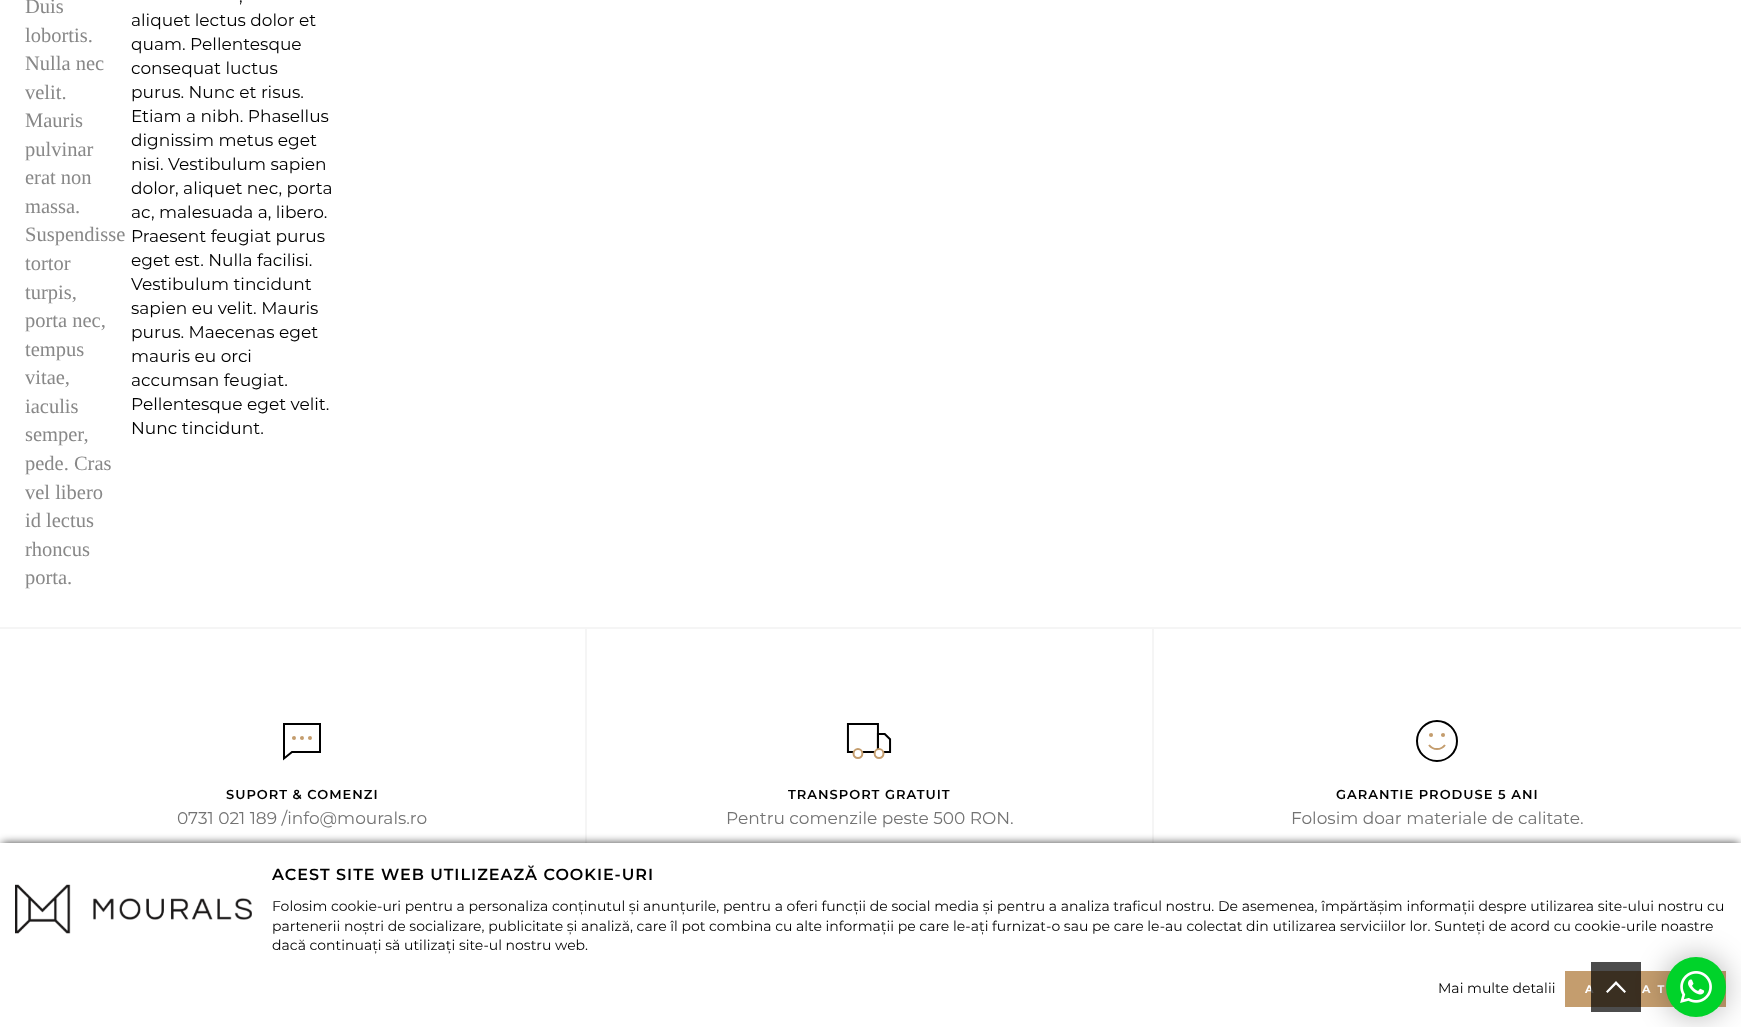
(async () => {
const canvas = document.querySelector("canvas")
canvas.width = 1741
canvas.height = 1027
const c = canvas.getContext("2d")
c.miterLimit = 4
c.fontKerning = "normal"
function T(s,x,y){c.fillText(s,x,y)}
function R(x,y,w,h){c.fillRect(x,y,w,h)}
async function I(src,x,y,w,h){const img=new Image();img.src=src;await img.decode();c.drawImage(img,x,y,w,h)}
let path
c.fillStyle="#fff"
R(0,0,1741,1027)
c.font="20.5px Liberation Serif"
c.fillStyle="#888"
T("Duis",25,13)
T("lobortis.",25,42)
T("Nulla nec",25,70)
T("velit.",25,99)
T("Mauris",25,127)
T("pulvinar",25,156)
T("erat non",25,184)
T("massa.",25,213)
T("Suspendisse",25,241)
T("tortor",25,270)
T("turpis,",25,299)
T("porta nec,",25,327)
T("tempus",25,356)
T("vitae,",25,384)
T("iaculis",25,413)
T("semper,",25,441)
T("pede. Cras",25,470)
T("vel libero",25,499)
T("id lectus",25,527)
T("rhoncus",25,556)
T("porta.",25,584)
c.font="17px Montserrat"
c.fillStyle="#000"
T(",",239,2)
T("aliquet lectus dolor et",131,26)
T("quam. Pellentesque",131,50)
T("consequat luctus",131,74)
T("purus. Nunc et risus.",131,98)
T("Etiam a nibh. Phasellus",131,122)
T("dignissim metus eget",131,146)
T("nisi. Vestibulum sapien",131,170)
T("dolor, aliquet nec, porta",131,194)
T("ac, malesuada a, libero.",131,218)
T("Praesent feugiat purus",131,242)
T("eget est. Nulla facilisi.",131,266)
T("Vestibulum tincidunt",131,290)
T("sapien eu velit. Mauris",131,314)
T("purus. Maecenas eget",131,338)
T("mauris eu orci",131,362)
T("accumsan feugiat.",131,386)
T("Pellentesque eget velit.",131,410)
T("Nunc tincidunt.",131,434)
c.fillStyle="#f5f5f5"
R(0,627,1741,2)
R(585,629,2,214)
await I("1.png",283,723,38,38)
c.letterSpacing="1px"
c.font="600 13px Montserrat"
c.fillStyle="#000"
T("SUPORT & COMENZI",226,799)
c.letterSpacing="0px"
c.font="17px Montserrat"
c.fillStyle="#737373"
T("0731 021 189 /info@mourals.ro",177,824)
c.fillStyle="#f5f5f5"
R(1152,629,2,214)
await I("2.png",846,723,46,36)
c.letterSpacing="1px"
c.font="600 13px Montserrat"
c.fillStyle="#000"
T("TRANSPORT GRATUIT",788,799)
c.letterSpacing="0px"
c.font="17px Montserrat"
c.fillStyle="#737373"
T("Pentru comenzile peste 500 RON.",726,824)
await I("3.png",1416,720,42,42)
c.letterSpacing="1px"
c.font="600 13px Montserrat"
c.fillStyle="#000"
T("GARANTIE PRODUSE 5 ANI",1336,799)
c.letterSpacing="0px"
c.font="17px Montserrat"
c.fillStyle="#737373"
T("Folosim doar materiale de calitate.",1291,824)
c.fillStyle="#000000bf"
c.filter="blur(4px)"
c.beginPath()
c.rect(2,843,1737,180)
c.fill()
c.filter="none"
c.fillStyle="#fff"
R(0,843,1741,184)
await I("4.png",15,884,237,50)
c.letterSpacing="1px"
c.font="600 16px Montserrat"
c.fillStyle="#000"
T("ACEST SITE WEB UTILIZEAZĂ COOKIE-URI",272,880)
c.letterSpacing="0px"
c.font="14px Montserrat"
T("Folosim cookie-uri pentru a personaliza conținutul și anunțurile, pentru a oferi funcții de social media și pentru a analiza traficul nostru. De asemenea, împărtășim informații despre utilizarea site-ului nostru cu",272,911)
T("partenerii noștri de socializare, publicitate și analiză, care îl pot combina cu alte informații pe care le-ați furnizat-o sau pe care le-au colectat din utilizarea serviciilor lor. Sunteți de acord cu cookie-urile noastre",272,931)
T("dacă continuați să utilizați site-ul nostru web.",272,950)
T("Mai multe detalii",1438,993)
c.fillStyle="#c49d6e"
R(1565,971,161,36)
c.letterSpacing="2px"
c.font="bold 11px Montserrat"
c.fillStyle="#fff"
T("A",1585,993)
T("A T",1642,993)
c.fillStyle="#0000004d"
c.filter="blur(15px)"
c.beginPath()
c.roundRect(1666,957,60,60,30)
c.fill()
c.filter="none"
c.fillStyle="#000000b3"
R(1591,962,50,50)
c.fillStyle="#fff"
path = new Path2D("M1606 991.5l1.5 1.5l8.5-8.5l8.5 8.5l1.5-1.5l-10-10.5z")
c.fill(path)
c.fillStyle="#00d32a"
c.beginPath()
c.arc(1696,987,30,0,7)
c.fill()
await I("5.png",1680,971,32,32)
})()
